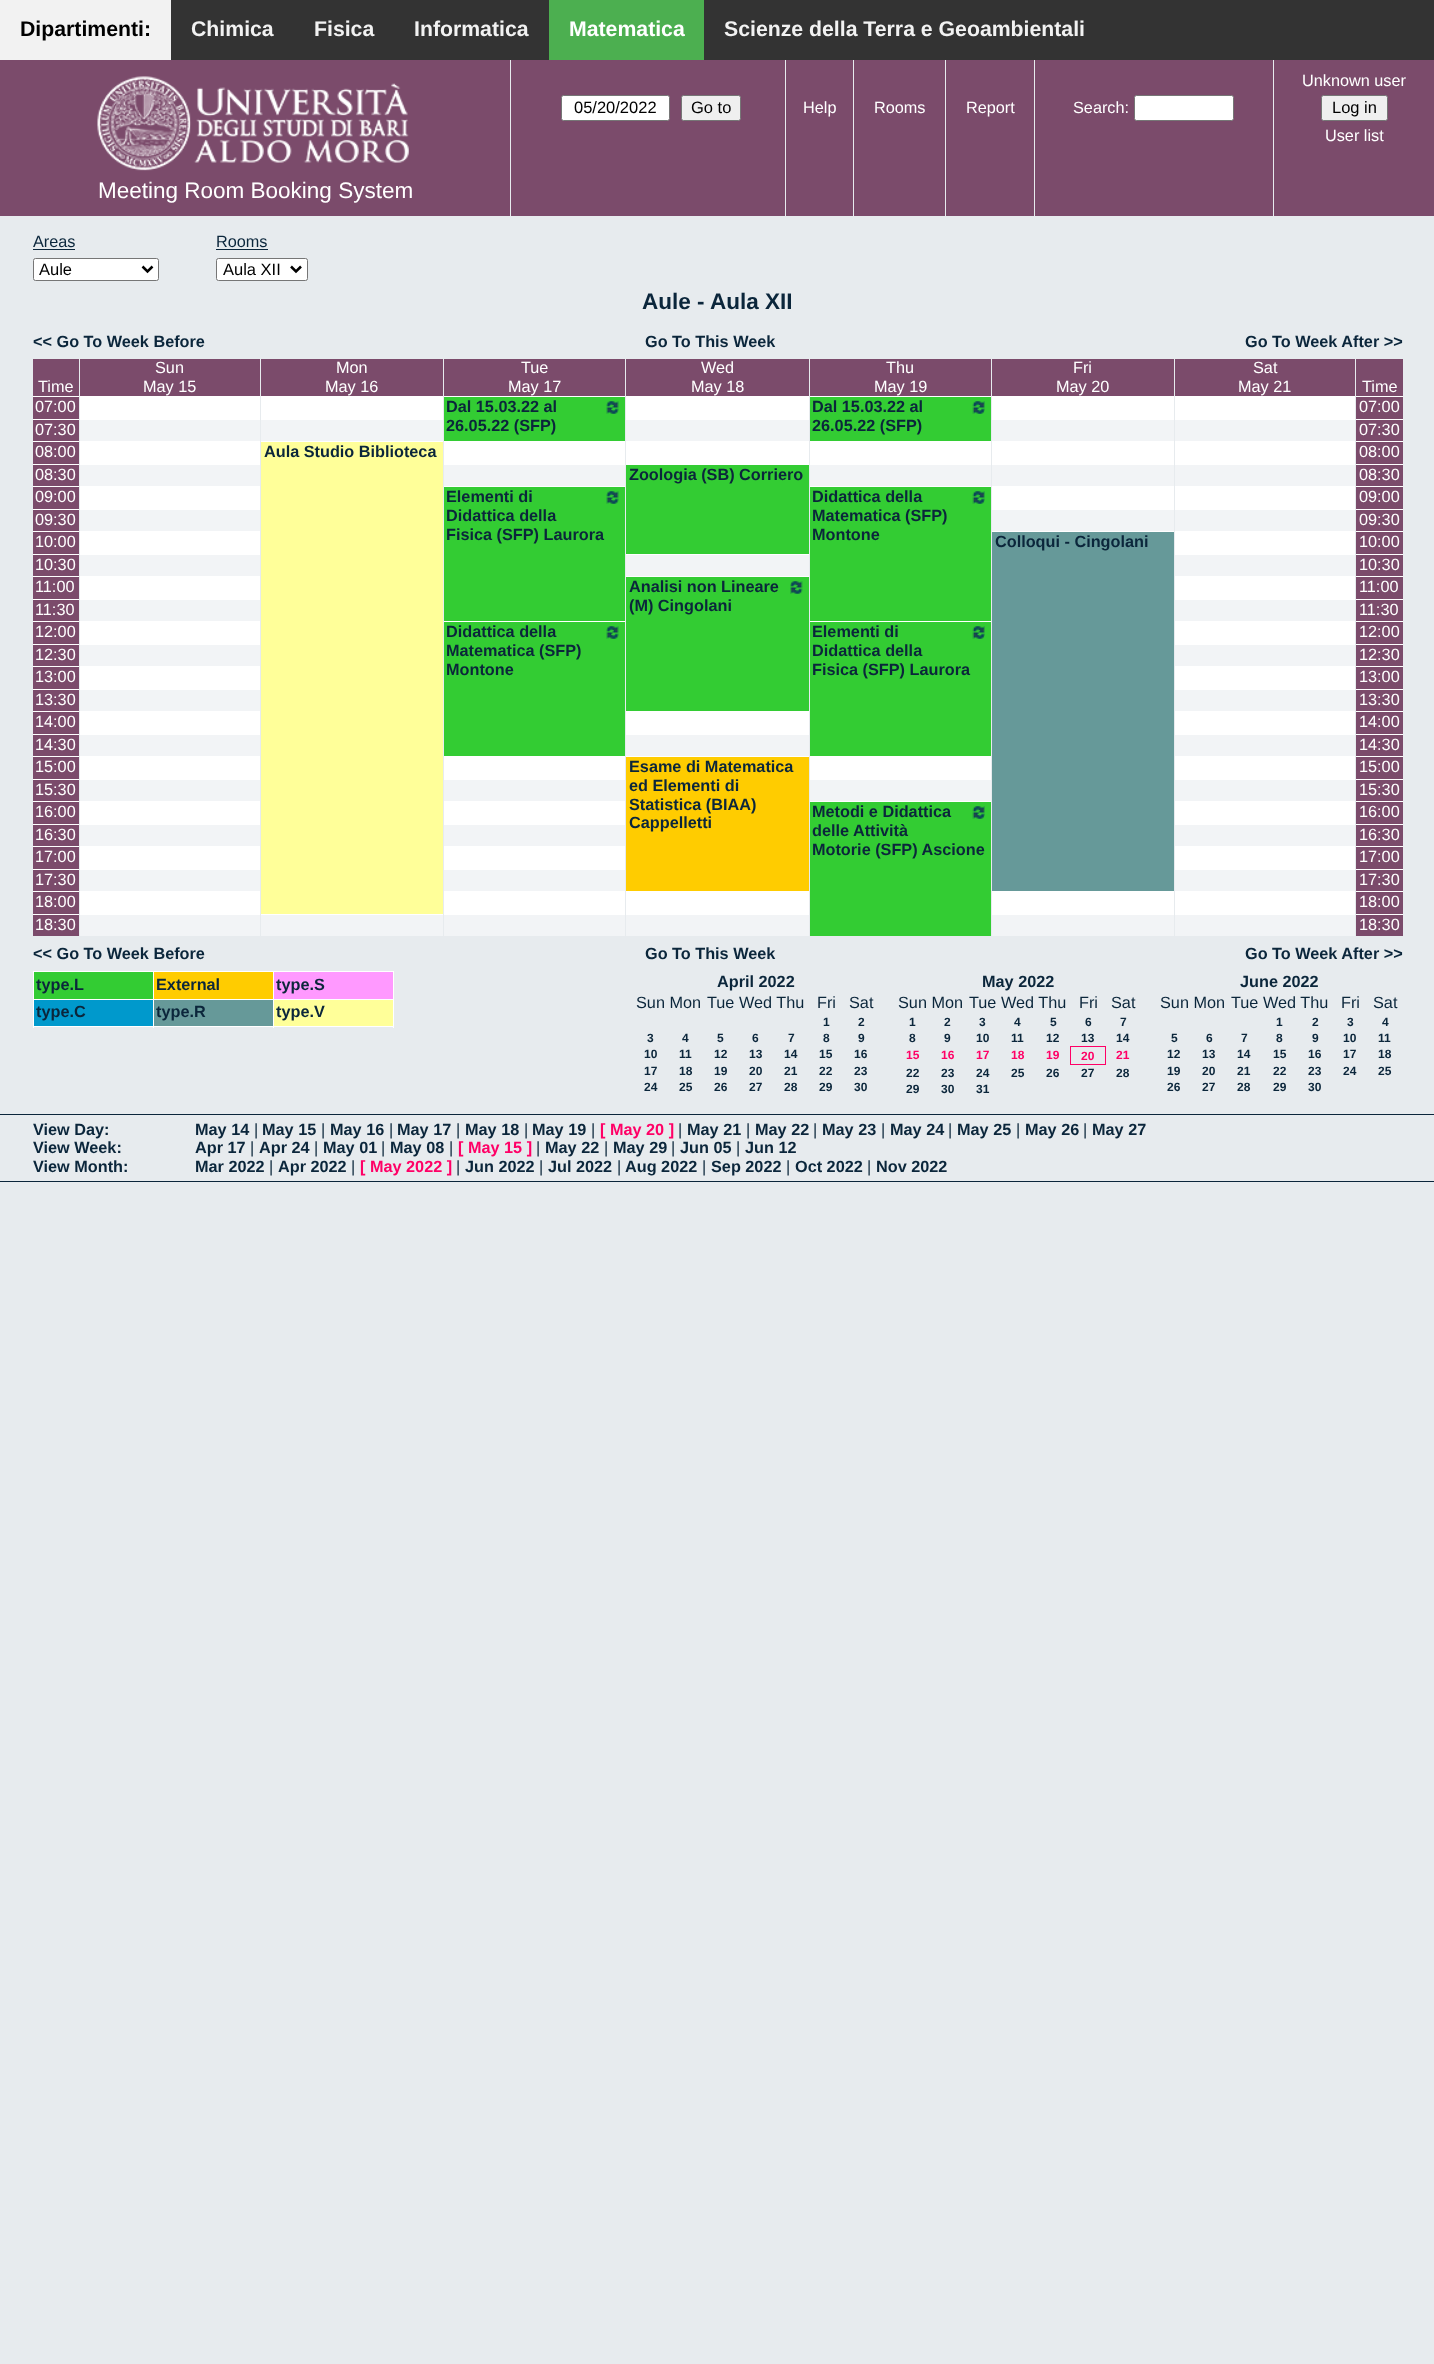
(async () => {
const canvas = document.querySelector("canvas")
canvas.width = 1434
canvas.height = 2364
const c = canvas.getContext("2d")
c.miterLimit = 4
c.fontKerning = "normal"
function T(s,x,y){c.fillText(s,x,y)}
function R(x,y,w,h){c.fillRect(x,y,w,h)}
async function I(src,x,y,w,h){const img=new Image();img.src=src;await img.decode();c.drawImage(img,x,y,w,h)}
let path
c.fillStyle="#e7ebee"
R(0,0,1434,2364)
c.fillStyle="#333"
R(171,0,1263,60)
c.fillStyle="#f2f2f2"
R(0,0,171,60)
c.font="bold 21.25px Liberation Sans"
c.fillStyle="#000"
T("Dipartimenti:",20,36)
c.fillStyle="#f2f2f2"
T("Chimica",191,36)
T("Fisica",314,36)
T("Informatica",414,36)
c.fillStyle="#4caf50"
R(549,0,155,60)
c.fillStyle="#fff"
T("Matematica",569,36)
c.fillStyle="#f2f2f2"
T("Scienze della Terra e Geoambientali",724,36)
c.fillStyle="#7b4b6b"
R(0,60,1434,156)
c.fillStyle="#e7ebee"
R(510,60,1,156)
c.fillStyle="#fff"
c.beginPath()
c.roundRect(561.5,95.5,108,25,2)
c.fill()
c.strokeStyle="#767676"
c.stroke()
c.font="16.5px Liberation Sans"
c.fillStyle="#000"
T("05/20/2022",574,113)
c.fillStyle="#efefef"
c.beginPath()
c.roundRect(681.5,95.5,59,25,2)
c.fill()
c.stroke()
c.fillStyle="#000"
T("Go to",691,113)
c.fillStyle="#e7ebee"
R(785,60,1,156)
c.font="16.25px Liberation Sans"
c.fillStyle="#fff"
T("Help",803,113)
c.fillStyle="#e7ebee"
R(853,60,1,156)
c.fillStyle="#fff"
T("Rooms",874,113)
c.fillStyle="#e7ebee"
R(945,60,1,156)
c.fillStyle="#fff"
T("Report",966,113)
c.fillStyle="#e7ebee"
R(1034,60,1,156)
c.fillStyle="#fff"
T("Search:",1073,113)
c.beginPath()
c.roundRect(1134.5,95.5,99,25,2)
c.fill()
c.stroke()
c.fillStyle="#e7ebee"
R(1273,60,1,156)
c.fillStyle="#fff"
T("Unknown user",1302,86)
c.fillStyle="#efefef"
c.beginPath()
c.roundRect(1321.5,95.5,66,25,2)
c.fill()
c.stroke()
c.font="16.5px Liberation Sans"
c.fillStyle="#000"
T("Log in",1332,113)
c.font="16.25px Liberation Sans"
c.fillStyle="#fff"
T("User list",1325,141)
await I("1.png",97,76,312,95)
c.font="22.5px Liberation Sans"
T("Meeting Room Booking System",98,198)
c.font="16.25px Liberation Sans"
c.fillStyle="#0b263b"
T("Areas",33,247)
R(33,249,42,1)
c.fillStyle="#fff"
c.beginPath()
c.roundRect(33.5,258.5,125,22,2)
c.fill()
c.stroke()
path = new Path2D("M142.5 266.5l5 5l5-5")
c.strokeStyle="#000"
c.lineWidth=2.5
c.stroke(path)
c.font="16.5px Liberation Sans"
c.fillStyle="#000"
T("Aule",39,275)
c.font="16.25px Liberation Sans"
c.fillStyle="#0b263b"
T("Rooms",216,247)
R(216,249,52,1)
c.fillStyle="#fff"
c.beginPath()
c.roundRect(216.5,258.5,91,22,2)
c.fill()
c.strokeStyle="#767676"
c.lineWidth=1
c.stroke()
path = new Path2D("M291 266.5l5 5l5-5")
c.strokeStyle="#000"
c.lineWidth=2.5
c.stroke(path)
c.font="16.5px Liberation Sans"
c.fillStyle="#000"
T("Aula XII",223,275)
c.font="bold 22.5px Liberation Sans"
c.fillStyle="#0b263b"
T("Aule - Aula XII",642,309)
c.font="bold 16.25px Liberation Sans"
T("<< Go To Week Before",33,347)
T("Go To This Week",645,347)
T("Go To Week After >>",1245,347)
c.fillStyle="#7b4b6b"
R(33,359,46,37)
c.font="16.25px Liberation Sans"
c.fillStyle="#fff"
T("Time",38,392)
c.fillStyle="#7b4b6b"
R(80,359,180,37)
c.fillStyle="#fff"
T("Sun",155,373)
T("May 15",143,392)
c.fillStyle="#7b4b6b"
R(261,359,182,37)
c.fillStyle="#fff"
T("Mon",336,373)
T("May 16",325,392)
c.fillStyle="#7b4b6b"
R(444,359,181,37)
c.fillStyle="#fff"
T("Tue",521,373)
T("May 17",508,392)
c.fillStyle="#7b4b6b"
R(626,359,183,37)
c.fillStyle="#fff"
T("Wed",701,373)
T("May 18",691,392)
c.fillStyle="#7b4b6b"
R(810,359,181,37)
c.fillStyle="#fff"
T("Thu",886,373)
T("May 19",874,392)
c.fillStyle="#7b4b6b"
R(992,359,182,37)
c.fillStyle="#fff"
T("Fri",1073,373)
T("May 20",1056,392)
c.fillStyle="#7b4b6b"
R(1175,359,180,37)
c.fillStyle="#fff"
T("Sat",1253,373)
T("May 21",1238,392)
c.fillStyle="#7b4b6b"
R(1356,359,47,37)
c.fillStyle="#fff"
T("Time",1362,392)
c.fillStyle="#7b4b6b"
R(33,397,46,22)
c.fillStyle="#fff"
R(33,396,46,1)
T("07:00",35,412)
R(80,396,180,23)
R(261,396,182,23)
c.fillStyle="#3c3"
R(444,397,181,44)
c.fillStyle="#fff"
R(443,396,182,1)
c.fillStyle="#e7ebee"
R(443,396,1,1)
c.font="bold 16.25px Liberation Sans"
c.fillStyle="#0b263b"
T("Dal 15.03.22 al",446,412)
await I("2.png",606,401,13,13)
T("26.05.22 (SFP)",446,431)
c.fillStyle="#fff"
R(626,396,183,23)
c.fillStyle="#3c3"
R(810,397,181,44)
c.fillStyle="#fff"
R(809,396,182,1)
c.fillStyle="#e7ebee"
R(809,396,1,1)
c.fillStyle="#0b263b"
T("Dal 15.03.22 al",812,412)
await I("3.png",972,401,13,13)
T("26.05.22 (SFP)",812,431)
c.fillStyle="#fff"
R(992,396,182,23)
R(1175,396,180,23)
c.fillStyle="#7b4b6b"
R(1356,397,47,22)
c.fillStyle="#fff"
R(1355,396,48,1)
c.fillStyle="#e7ebee"
R(1355,396,1,1)
c.font="16.25px Liberation Sans"
c.fillStyle="#fff"
T("07:00",1359,412)
c.fillStyle="#f2f4f6"
R(80,420,180,21)
c.fillStyle="#fff"
R(33,419,410,1)
c.fillStyle="#e7ebee"
R(79,419,1,1)
c.fillStyle="#f2f4f6"
R(261,420,182,21)
c.fillStyle="#e7ebee"
R(260,419,1,1)
c.fillStyle="#f2f4f6"
R(626,420,183,21)
c.fillStyle="#fff"
R(625,419,184,1)
c.fillStyle="#e7ebee"
R(625,419,1,1)
c.fillStyle="#f2f4f6"
R(992,420,182,21)
c.fillStyle="#fff"
R(991,419,412,1)
c.fillStyle="#e7ebee"
R(991,419,1,1)
c.fillStyle="#7b4b6b"
R(33,420,46,21)
c.fillStyle="#fff"
T("07:30",35,435)
c.fillStyle="#f2f4f6"
R(1175,420,180,21)
c.fillStyle="#e7ebee"
R(1174,419,1,1)
c.fillStyle="#7b4b6b"
R(1356,420,47,21)
c.fillStyle="#e7ebee"
R(1355,419,1,1)
c.fillStyle="#fff"
T("07:30",1359,435)
c.fillStyle="#7b4b6b"
R(33,442,46,22)
c.fillStyle="#fff"
R(33,441,46,1)
T("08:00",35,457)
R(80,441,180,23)
c.fillStyle="#ff9"
R(261,442,182,472)
c.fillStyle="#fff"
R(260,441,183,1)
c.fillStyle="#e7ebee"
R(260,441,1,1)
c.font="bold 16.25px Liberation Sans"
c.fillStyle="#0b263b"
T("Aula Studio Biblioteca",264,457)
c.fillStyle="#fff"
R(444,441,181,23)
R(626,441,183,23)
R(810,441,181,23)
R(992,441,182,23)
R(1175,441,180,23)
c.fillStyle="#7b4b6b"
R(1356,442,47,22)
c.fillStyle="#fff"
R(1355,441,48,1)
c.fillStyle="#e7ebee"
R(1355,441,1,1)
c.font="16.25px Liberation Sans"
c.fillStyle="#fff"
T("08:00",1359,457)
c.fillStyle="#f2f4f6"
R(80,465,180,21)
c.fillStyle="#fff"
R(33,464,227,1)
c.fillStyle="#e7ebee"
R(79,464,1,1)
c.fillStyle="#f2f4f6"
R(444,465,181,21)
c.fillStyle="#fff"
R(443,464,960,1)
c.fillStyle="#e7ebee"
R(443,464,1,1)
c.fillStyle="#7b4b6b"
R(33,465,46,21)
c.fillStyle="#fff"
T("08:30",35,480)
c.fillStyle="#3c3"
R(626,465,183,89)
c.fillStyle="#e7ebee"
R(625,464,1,1)
c.font="bold 16.25px Liberation Sans"
c.fillStyle="#0b263b"
T("Zoologia (SB) Corriero",629,480)
c.fillStyle="#f2f4f6"
R(810,465,181,21)
c.fillStyle="#e7ebee"
R(809,464,1,1)
c.fillStyle="#f2f4f6"
R(992,465,182,21)
c.fillStyle="#e7ebee"
R(991,464,1,1)
c.fillStyle="#f2f4f6"
R(1175,465,180,21)
c.fillStyle="#e7ebee"
R(1174,464,1,1)
c.fillStyle="#7b4b6b"
R(1356,465,47,21)
c.fillStyle="#e7ebee"
R(1355,464,1,1)
c.font="16.25px Liberation Sans"
c.fillStyle="#fff"
T("08:30",1359,480)
c.fillStyle="#7b4b6b"
R(33,487,46,22)
c.fillStyle="#fff"
R(33,486,46,1)
T("09:00",35,502)
R(80,486,180,23)
c.fillStyle="#3c3"
R(444,487,181,134)
c.fillStyle="#fff"
R(443,486,182,1)
c.fillStyle="#e7ebee"
R(443,486,1,1)
c.font="bold 16.25px Liberation Sans"
c.fillStyle="#0b263b"
T("Elementi di",446,502)
await I("2.png",606,491,13,13)
T("Didattica della",446,521)
T("Fisica (SFP) Laurora",446,540)
c.fillStyle="#3c3"
R(810,487,181,134)
c.fillStyle="#fff"
R(809,486,182,1)
c.fillStyle="#e7ebee"
R(809,486,1,1)
c.fillStyle="#0b263b"
T("Didattica della",812,502)
await I("3.png",972,491,13,13)
T("Matematica (SFP)",812,521)
T("Montone",812,540)
c.fillStyle="#fff"
R(992,486,182,23)
R(1175,486,180,23)
c.fillStyle="#7b4b6b"
R(1356,487,47,22)
c.fillStyle="#fff"
R(1355,486,48,1)
c.fillStyle="#e7ebee"
R(1355,486,1,1)
c.font="16.25px Liberation Sans"
c.fillStyle="#fff"
T("09:00",1359,502)
c.fillStyle="#f2f4f6"
R(80,510,180,21)
c.fillStyle="#fff"
R(33,509,227,1)
c.fillStyle="#e7ebee"
R(79,509,1,1)
c.fillStyle="#f2f4f6"
R(992,510,182,21)
c.fillStyle="#fff"
R(991,509,412,1)
c.fillStyle="#e7ebee"
R(991,509,1,1)
c.fillStyle="#7b4b6b"
R(33,510,46,21)
c.fillStyle="#fff"
T("09:30",35,525)
c.fillStyle="#f2f4f6"
R(1175,510,180,21)
c.fillStyle="#e7ebee"
R(1174,509,1,1)
c.fillStyle="#7b4b6b"
R(1356,510,47,21)
c.fillStyle="#e7ebee"
R(1355,509,1,1)
c.fillStyle="#fff"
T("09:30",1359,525)
c.fillStyle="#7b4b6b"
R(33,532,46,22)
c.fillStyle="#fff"
R(33,531,46,1)
T("10:00",35,547)
R(80,531,180,23)
c.fillStyle="#699"
R(992,532,182,359)
c.fillStyle="#fff"
R(991,531,183,1)
c.fillStyle="#e7ebee"
R(991,531,1,1)
c.font="bold 16.25px Liberation Sans"
c.fillStyle="#0b263b"
T("Colloqui - Cingolani",995,547)
c.fillStyle="#fff"
R(1175,531,180,23)
c.fillStyle="#7b4b6b"
R(1356,532,47,22)
c.fillStyle="#fff"
R(1355,531,48,1)
c.fillStyle="#e7ebee"
R(1355,531,1,1)
c.font="16.25px Liberation Sans"
c.fillStyle="#fff"
T("10:00",1359,547)
c.fillStyle="#7b4b6b"
R(33,555,46,21)
c.fillStyle="#fff"
R(33,554,227,1)
T("10:30",35,570)
c.fillStyle="#f2f4f6"
R(80,555,180,21)
c.fillStyle="#e7ebee"
R(79,554,1,1)
c.fillStyle="#f2f4f6"
R(626,555,183,21)
c.fillStyle="#fff"
R(625,554,184,1)
c.fillStyle="#e7ebee"
R(625,554,1,1)
c.fillStyle="#f2f4f6"
R(1175,555,180,21)
c.fillStyle="#fff"
R(1174,554,229,1)
c.fillStyle="#e7ebee"
R(1174,554,1,1)
c.fillStyle="#7b4b6b"
R(1356,555,47,21)
c.fillStyle="#e7ebee"
R(1355,554,1,1)
c.fillStyle="#fff"
T("10:30",1359,570)
c.fillStyle="#7b4b6b"
R(33,577,46,22)
c.fillStyle="#fff"
R(33,576,46,1)
T("11:00",35,592)
R(80,576,180,23)
c.fillStyle="#3c3"
R(626,577,183,134)
c.fillStyle="#fff"
R(625,576,184,1)
c.fillStyle="#e7ebee"
R(625,576,1,1)
c.font="bold 16.25px Liberation Sans"
c.fillStyle="#0b263b"
T("Analisi non Lineare",629,592)
await I("4.png",790,581,13,13)
T("(M) Cingolani",629,611)
c.fillStyle="#fff"
R(1175,576,180,23)
c.fillStyle="#7b4b6b"
R(1356,577,47,22)
c.fillStyle="#fff"
R(1355,576,48,1)
c.fillStyle="#e7ebee"
R(1355,576,1,1)
c.font="16.25px Liberation Sans"
c.fillStyle="#fff"
T("11:00",1359,592)
c.fillStyle="#7b4b6b"
R(33,600,46,21)
c.fillStyle="#fff"
R(33,599,227,1)
T("11:30",35,615)
c.fillStyle="#f2f4f6"
R(80,600,180,21)
c.fillStyle="#e7ebee"
R(79,599,1,1)
c.fillStyle="#f2f4f6"
R(1175,600,180,21)
c.fillStyle="#fff"
R(1174,599,229,1)
c.fillStyle="#e7ebee"
R(1174,599,1,1)
c.fillStyle="#7b4b6b"
R(1356,600,47,21)
c.fillStyle="#e7ebee"
R(1355,599,1,1)
c.fillStyle="#fff"
T("11:30",1359,615)
c.fillStyle="#7b4b6b"
R(33,622,46,22)
c.fillStyle="#fff"
R(33,621,46,1)
T("12:00",35,637)
R(80,621,180,23)
c.fillStyle="#3c3"
R(444,622,181,134)
c.fillStyle="#fff"
R(443,621,182,1)
c.fillStyle="#e7ebee"
R(443,621,1,1)
c.font="bold 16.25px Liberation Sans"
c.fillStyle="#0b263b"
T("Didattica della",446,637)
await I("2.png",606,626,13,13)
T("Matematica (SFP)",446,656)
T("Montone",446,675)
c.fillStyle="#3c3"
R(810,622,181,134)
c.fillStyle="#fff"
R(809,621,182,1)
c.fillStyle="#e7ebee"
R(809,621,1,1)
c.fillStyle="#0b263b"
T("Elementi di",812,637)
await I("3.png",972,626,13,13)
T("Didattica della",812,656)
T("Fisica (SFP) Laurora",812,675)
c.fillStyle="#fff"
R(1175,621,180,23)
c.fillStyle="#7b4b6b"
R(1356,622,47,22)
c.fillStyle="#fff"
R(1355,621,48,1)
c.fillStyle="#e7ebee"
R(1355,621,1,1)
c.font="16.25px Liberation Sans"
c.fillStyle="#fff"
T("12:00",1359,637)
c.fillStyle="#7b4b6b"
R(33,645,46,21)
c.fillStyle="#fff"
R(33,644,227,1)
T("12:30",35,660)
c.fillStyle="#f2f4f6"
R(80,645,180,21)
c.fillStyle="#e7ebee"
R(79,644,1,1)
c.fillStyle="#f2f4f6"
R(1175,645,180,21)
c.fillStyle="#fff"
R(1174,644,229,1)
c.fillStyle="#e7ebee"
R(1174,644,1,1)
c.fillStyle="#7b4b6b"
R(1356,645,47,21)
c.fillStyle="#e7ebee"
R(1355,644,1,1)
c.fillStyle="#fff"
T("12:30",1359,660)
c.fillStyle="#7b4b6b"
R(33,667,46,22)
c.fillStyle="#fff"
R(33,666,46,1)
T("13:00",35,682)
R(80,666,180,23)
R(1175,666,180,23)
c.fillStyle="#7b4b6b"
R(1356,667,47,22)
c.fillStyle="#fff"
R(1355,666,48,1)
c.fillStyle="#e7ebee"
R(1355,666,1,1)
c.fillStyle="#fff"
T("13:00",1359,682)
c.fillStyle="#7b4b6b"
R(33,690,46,21)
c.fillStyle="#fff"
R(33,689,227,1)
T("13:30",35,705)
c.fillStyle="#f2f4f6"
R(80,690,180,21)
c.fillStyle="#e7ebee"
R(79,689,1,1)
c.fillStyle="#f2f4f6"
R(1175,690,180,21)
c.fillStyle="#fff"
R(1174,689,229,1)
c.fillStyle="#e7ebee"
R(1174,689,1,1)
c.fillStyle="#7b4b6b"
R(1356,690,47,21)
c.fillStyle="#e7ebee"
R(1355,689,1,1)
c.fillStyle="#fff"
T("13:30",1359,705)
c.fillStyle="#7b4b6b"
R(33,712,46,22)
c.fillStyle="#fff"
R(33,711,46,1)
T("14:00",35,727)
R(80,711,180,23)
R(626,711,183,23)
R(1175,711,180,23)
c.fillStyle="#7b4b6b"
R(1356,712,47,22)
c.fillStyle="#fff"
R(1355,711,48,1)
c.fillStyle="#e7ebee"
R(1355,711,1,1)
c.fillStyle="#fff"
T("14:00",1359,727)
c.fillStyle="#7b4b6b"
R(33,735,46,21)
c.fillStyle="#fff"
R(33,734,227,1)
T("14:30",35,750)
c.fillStyle="#f2f4f6"
R(80,735,180,21)
c.fillStyle="#e7ebee"
R(79,734,1,1)
c.fillStyle="#f2f4f6"
R(626,735,183,21)
c.fillStyle="#fff"
R(625,734,184,1)
c.fillStyle="#e7ebee"
R(625,734,1,1)
c.fillStyle="#f2f4f6"
R(1175,735,180,21)
c.fillStyle="#fff"
R(1174,734,229,1)
c.fillStyle="#e7ebee"
R(1174,734,1,1)
c.fillStyle="#7b4b6b"
R(1356,735,47,21)
c.fillStyle="#e7ebee"
R(1355,734,1,1)
c.fillStyle="#fff"
T("14:30",1359,750)
c.fillStyle="#7b4b6b"
R(33,757,46,22)
c.fillStyle="#fff"
R(33,756,46,1)
T("15:00",35,772)
R(80,756,180,23)
R(444,756,181,23)
c.fillStyle="#fc0"
R(626,757,183,134)
c.fillStyle="#fff"
R(625,756,184,1)
c.fillStyle="#e7ebee"
R(625,756,1,1)
c.font="bold 16.25px Liberation Sans"
c.fillStyle="#0b263b"
T("Esame di Matematica",629,772)
T("ed Elementi di",629,791)
T("Statistica (BIAA)",629,810)
T("Cappelletti",629,828)
c.fillStyle="#fff"
R(810,756,181,23)
R(1175,756,180,23)
c.fillStyle="#7b4b6b"
R(1356,757,47,22)
c.fillStyle="#fff"
R(1355,756,48,1)
c.fillStyle="#e7ebee"
R(1355,756,1,1)
c.font="16.25px Liberation Sans"
c.fillStyle="#fff"
T("15:00",1359,772)
c.fillStyle="#7b4b6b"
R(33,780,46,21)
c.fillStyle="#fff"
R(33,779,227,1)
T("15:30",35,795)
c.fillStyle="#f2f4f6"
R(80,780,180,21)
c.fillStyle="#e7ebee"
R(79,779,1,1)
c.fillStyle="#f2f4f6"
R(444,780,181,21)
c.fillStyle="#fff"
R(443,779,182,1)
c.fillStyle="#e7ebee"
R(443,779,1,1)
c.fillStyle="#f2f4f6"
R(810,780,181,21)
c.fillStyle="#fff"
R(809,779,182,1)
c.fillStyle="#e7ebee"
R(809,779,1,1)
c.fillStyle="#f2f4f6"
R(1175,780,180,21)
c.fillStyle="#fff"
R(1174,779,229,1)
c.fillStyle="#e7ebee"
R(1174,779,1,1)
c.fillStyle="#7b4b6b"
R(1356,780,47,21)
c.fillStyle="#e7ebee"
R(1355,779,1,1)
c.fillStyle="#fff"
T("15:30",1359,795)
c.fillStyle="#7b4b6b"
R(33,802,46,22)
c.fillStyle="#fff"
R(33,801,46,1)
T("16:00",35,817)
R(80,801,180,23)
R(444,801,181,23)
c.fillStyle="#3c3"
R(810,802,181,134)
c.fillStyle="#fff"
R(809,801,182,1)
c.fillStyle="#e7ebee"
R(809,801,1,1)
c.font="bold 16.25px Liberation Sans"
c.fillStyle="#0b263b"
T("Metodi e Didattica",812,817)
await I("3.png",972,806,13,13)
T("delle Attività",812,836)
T("Motorie (SFP) Ascione",812,855)
c.fillStyle="#fff"
R(1175,801,180,23)
c.fillStyle="#7b4b6b"
R(1356,802,47,22)
c.fillStyle="#fff"
R(1355,801,48,1)
c.fillStyle="#e7ebee"
R(1355,801,1,1)
c.font="16.25px Liberation Sans"
c.fillStyle="#fff"
T("16:00",1359,817)
c.fillStyle="#7b4b6b"
R(33,825,46,21)
c.fillStyle="#fff"
R(33,824,227,1)
T("16:30",35,840)
c.fillStyle="#f2f4f6"
R(80,825,180,21)
c.fillStyle="#e7ebee"
R(79,824,1,1)
c.fillStyle="#f2f4f6"
R(444,825,181,21)
c.fillStyle="#fff"
R(443,824,182,1)
c.fillStyle="#e7ebee"
R(443,824,1,1)
c.fillStyle="#f2f4f6"
R(1175,825,180,21)
c.fillStyle="#fff"
R(1174,824,229,1)
c.fillStyle="#e7ebee"
R(1174,824,1,1)
c.fillStyle="#7b4b6b"
R(1356,825,47,21)
c.fillStyle="#e7ebee"
R(1355,824,1,1)
c.fillStyle="#fff"
T("16:30",1359,840)
c.fillStyle="#7b4b6b"
R(33,847,46,22)
c.fillStyle="#fff"
R(33,846,46,1)
T("17:00",35,862)
R(80,846,180,23)
R(444,846,181,23)
R(1175,846,180,23)
c.fillStyle="#7b4b6b"
R(1356,847,47,22)
c.fillStyle="#fff"
R(1355,846,48,1)
c.fillStyle="#e7ebee"
R(1355,846,1,1)
c.fillStyle="#fff"
T("17:00",1359,862)
c.fillStyle="#7b4b6b"
R(33,870,46,21)
c.fillStyle="#fff"
R(33,869,227,1)
T("17:30",35,885)
c.fillStyle="#f2f4f6"
R(80,870,180,21)
c.fillStyle="#e7ebee"
R(79,869,1,1)
c.fillStyle="#f2f4f6"
R(444,870,181,21)
c.fillStyle="#fff"
R(443,869,182,1)
c.fillStyle="#e7ebee"
R(443,869,1,1)
c.fillStyle="#f2f4f6"
R(1175,870,180,21)
c.fillStyle="#fff"
R(1174,869,229,1)
c.fillStyle="#e7ebee"
R(1174,869,1,1)
c.fillStyle="#7b4b6b"
R(1356,870,47,21)
c.fillStyle="#e7ebee"
R(1355,869,1,1)
c.fillStyle="#fff"
T("17:30",1359,885)
c.fillStyle="#7b4b6b"
R(33,892,46,22)
c.fillStyle="#fff"
R(33,891,46,1)
T("18:00",35,907)
R(80,891,180,23)
R(444,891,181,23)
R(626,891,183,23)
R(992,891,182,23)
R(1175,891,180,23)
c.fillStyle="#7b4b6b"
R(1356,892,47,22)
c.fillStyle="#fff"
R(1355,891,48,1)
c.fillStyle="#e7ebee"
R(1355,891,1,1)
c.fillStyle="#fff"
T("18:00",1359,907)
c.fillStyle="#f2f4f6"
R(80,915,180,21)
c.fillStyle="#fff"
R(33,914,776,1)
c.fillStyle="#e7ebee"
R(79,914,1,1)
c.fillStyle="#f2f4f6"
R(261,915,182,21)
c.fillStyle="#e7ebee"
R(260,914,1,1)
c.fillStyle="#f2f4f6"
R(444,915,181,21)
c.fillStyle="#e7ebee"
R(443,914,1,1)
c.fillStyle="#f2f4f6"
R(626,915,183,21)
c.fillStyle="#e7ebee"
R(625,914,1,1)
c.fillStyle="#f2f4f6"
R(992,915,182,21)
c.fillStyle="#fff"
R(991,914,412,1)
c.fillStyle="#e7ebee"
R(991,914,1,1)
c.fillStyle="#7b4b6b"
R(33,915,46,21)
c.fillStyle="#fff"
T("18:30",35,930)
c.fillStyle="#f2f4f6"
R(1175,915,180,21)
c.fillStyle="#e7ebee"
R(1174,914,1,1)
c.fillStyle="#7b4b6b"
R(1356,915,47,21)
c.fillStyle="#e7ebee"
R(1355,914,1,1)
c.fillStyle="#fff"
T("18:30",1359,930)
c.font="bold 16.25px Liberation Sans"
c.fillStyle="#0b263b"
T("<< Go To Week Before",33,959)
T("Go To This Week",645,959)
T("Go To Week After >>",1245,959)
c.fillStyle="#3c3"
R(34,972,119,27)
c.fillStyle="#fff"
R(273,971,121,1)
R(273,999,121,1)
R(393,999,1,29)
R(273,1026,121,1)
R(273,999,1,29)
R(153,999,121,1)
R(273,971,1,29)
R(153,971,121,1)
R(153,1026,121,1)
R(153,999,1,29)
R(33,999,121,1)
R(153,971,1,29)
R(33,971,121,1)
R(33,1026,121,1)
R(33,999,1,29)
R(33,971,1,29)
c.fillStyle="#0b263b"
T("type.L",36,990)
c.fillStyle="#fc0"
R(154,972,119,27)
c.fillStyle="#0b263b"
T("External",156,990)
c.fillStyle="#f9f"
R(274,972,119,27)
c.fillStyle="#fff"
R(393,971,1,29)
c.fillStyle="#0b263b"
T("type.S",276,990)
c.fillStyle="#09c"
R(34,1000,119,26)
c.fillStyle="#0b263b"
T("type.C",36,1017)
c.fillStyle="#699"
R(154,1000,119,26)
c.fillStyle="#0b263b"
T("type.R",156,1017)
c.fillStyle="#ff9"
R(274,1000,119,26)
c.fillStyle="#0b263b"
T("type.V",276,1017)
T("April 2022",717,987)
c.font="16.25px Liberation Sans"
T("Sun Mon",636,1008)
T("Tue",707,1008)
T("Wed Thu",739,1008)
T("Fri",817,1008)
T("Sat",849,1008)
c.font="bold 12px Liberation Sans"
T("1",823,1026)
T("2",858,1026)
T("3",647,1042)
T("4",682,1042)
T("5",717,1042)
T("6",752,1042)
T("7",788,1042)
T("8",823,1042)
T("9",858,1042)
T("10",644,1058)
T("11",679,1058)
T("12",714,1058)
T("13",749,1058)
T("14",784,1058)
T("15",819,1058)
T("16",854,1058)
T("17",644,1075)
T("18",679,1075)
T("19",714,1075)
T("20",749,1075)
T("21",784,1075)
T("22",819,1075)
T("23",854,1075)
T("24",644,1091)
T("25",679,1091)
T("26",714,1091)
T("27",749,1091)
T("28",784,1091)
T("29",819,1091)
T("30",854,1091)
c.font="bold 16.25px Liberation Sans"
T("May 2022",982,987)
c.font="16.25px Liberation Sans"
T("Sun Mon",898,1008)
T("Tue",969,1008)
T("Wed Thu",1001,1008)
T("Fri",1079,1008)
T("Sat",1111,1008)
c.font="bold 12px Liberation Sans"
T("1",909,1026)
T("2",944,1026)
T("3",979,1026)
T("4",1014,1026)
T("5",1050,1026)
T("6",1085,1026)
T("7",1120,1026)
T("8",909,1042)
T("9",944,1042)
T("10",976,1042)
T("11",1011,1042)
T("12",1046,1042)
T("13",1081,1042)
T("14",1116,1042)
c.fillStyle="#f06"
T("15",906,1059)
T("16",941,1059)
T("17",976,1059)
T("18",1011,1059)
T("19",1046,1059)
R(1070,1046,36,1)
R(1105,1046,1,19)
R(1070,1064,36,1)
R(1070,1046,1,19)
T("20",1081,1060)
T("21",1116,1059)
c.fillStyle="#0b263b"
T("22",906,1077)
T("23",941,1077)
T("24",976,1077)
T("25",1011,1077)
T("26",1046,1077)
T("27",1081,1077)
T("28",1116,1077)
T("29",906,1093)
T("30",941,1093)
T("31",976,1093)
c.font="bold 16.25px Liberation Sans"
T("June 2022",1240,987)
c.font="16.25px Liberation Sans"
T("Sun Mon",1160,1008)
T("Tue",1231,1008)
T("Wed Thu",1263,1008)
T("Fri",1341,1008)
T("Sat",1373,1008)
c.font="bold 12px Liberation Sans"
T("1",1276,1026)
T("2",1312,1026)
T("3",1347,1026)
T("4",1382,1026)
T("5",1171,1042)
T("6",1206,1042)
T("7",1241,1042)
T("8",1276,1042)
T("9",1312,1042)
T("10",1343,1042)
T("11",1378,1042)
T("12",1167,1058)
T("13",1202,1058)
T("14",1237,1058)
T("15",1273,1058)
T("16",1308,1058)
T("17",1343,1058)
T("18",1378,1058)
T("19",1167,1075)
T("20",1202,1075)
T("21",1237,1075)
T("22",1273,1075)
T("23",1308,1075)
T("24",1343,1075)
T("25",1378,1075)
T("26",1167,1091)
T("27",1202,1091)
T("28",1237,1091)
T("29",1273,1091)
T("30",1308,1091)
R(0,1114,1434,1)
R(0,1181,1434,1)
c.font="bold 16.25px Liberation Sans"
T("View Day:",33,1135)
T("May 14",195,1135)
c.font="16.25px Liberation Sans"
T("|",254,1135)
c.font="bold 16.25px Liberation Sans"
T("May 15",262,1135)
c.font="16.25px Liberation Sans"
T("|",321,1135)
c.font="bold 16.25px Liberation Sans"
T("May 16",330,1135)
c.font="16.25px Liberation Sans"
T("|",389,1135)
c.font="bold 16.25px Liberation Sans"
T("May 17",397,1135)
c.font="16.25px Liberation Sans"
T("|",456,1135)
c.font="bold 16.25px Liberation Sans"
T("May 18",465,1135)
c.font="16.25px Liberation Sans"
T("|",524,1135)
c.font="bold 16.25px Liberation Sans"
T("May 19",532,1135)
c.font="16.25px Liberation Sans"
T("|",591,1135)
c.font="bold 16.25px Liberation Sans"
c.fillStyle="#f06"
T("[ May 20 ]",600,1135)
c.font="16.25px Liberation Sans"
c.fillStyle="#0b263b"
T("|",678,1135)
c.font="bold 16.25px Liberation Sans"
T("May 21",687,1135)
c.font="16.25px Liberation Sans"
T("|",746,1135)
c.font="bold 16.25px Liberation Sans"
T("May 22",755,1135)
c.font="16.25px Liberation Sans"
T("|",813,1135)
c.font="bold 16.25px Liberation Sans"
T("May 23",822,1135)
c.font="16.25px Liberation Sans"
T("|",881,1135)
c.font="bold 16.25px Liberation Sans"
T("May 24",890,1135)
c.font="16.25px Liberation Sans"
T("|",948,1135)
c.font="bold 16.25px Liberation Sans"
T("May 25",957,1135)
c.font="16.25px Liberation Sans"
T("|",1016,1135)
c.font="bold 16.25px Liberation Sans"
T("May 26",1025,1135)
c.font="16.25px Liberation Sans"
T("|",1083,1135)
c.font="bold 16.25px Liberation Sans"
T("May 27",1092,1135)
T("View Week:",33,1153)
T("Apr 17",195,1153)
c.font="16.25px Liberation Sans"
T("|",250,1153)
c.font="bold 16.25px Liberation Sans"
T("Apr 24",259,1153)
c.font="16.25px Liberation Sans"
T("|",314,1153)
c.font="bold 16.25px Liberation Sans"
T("May 01",323,1153)
c.font="16.25px Liberation Sans"
T("|",381,1153)
c.font="bold 16.25px Liberation Sans"
T("May 08",390,1153)
c.font="16.25px Liberation Sans"
T("|",449,1153)
c.font="bold 16.25px Liberation Sans"
c.fillStyle="#f06"
T("[ May 15 ]",458,1153)
c.font="16.25px Liberation Sans"
c.fillStyle="#0b263b"
T("|",536,1153)
c.font="bold 16.25px Liberation Sans"
T("May 22",545,1153)
c.font="16.25px Liberation Sans"
T("|",604,1153)
c.font="bold 16.25px Liberation Sans"
T("May 29",613,1153)
c.font="16.25px Liberation Sans"
T("|",671,1153)
c.font="bold 16.25px Liberation Sans"
T("Jun 05",680,1153)
c.font="16.25px Liberation Sans"
T("|",736,1153)
c.font="bold 16.25px Liberation Sans"
T("Jun 12",745,1153)
T("View Month:",33,1172)
T("Mar 2022",195,1172)
c.font="16.25px Liberation Sans"
T("|",269,1172)
c.font="bold 16.25px Liberation Sans"
T("Apr 2022",278,1172)
c.font="16.25px Liberation Sans"
T("|",351,1172)
c.font="bold 16.25px Liberation Sans"
c.fillStyle="#f06"
T("[ May 2022 ]",360,1172)
c.font="16.25px Liberation Sans"
c.fillStyle="#0b263b"
T("|",456,1172)
c.font="bold 16.25px Liberation Sans"
T("Jun 2022",465,1172)
c.font="16.25px Liberation Sans"
T("|",539,1172)
c.font="bold 16.25px Liberation Sans"
T("Jul 2022",548,1172)
c.font="16.25px Liberation Sans"
T("|",617,1172)
c.font="bold 16.25px Liberation Sans"
T("Aug 2022",625,1172)
c.font="16.25px Liberation Sans"
T("|",702,1172)
c.font="bold 16.25px Liberation Sans"
T("Sep 2022",711,1172)
c.font="16.25px Liberation Sans"
T("|",786,1172)
c.font="bold 16.25px Liberation Sans"
T("Oct 2022",795,1172)
c.font="16.25px Liberation Sans"
T("|",867,1172)
c.font="bold 16.25px Liberation Sans"
T("Nov 2022",876,1172)
})()
